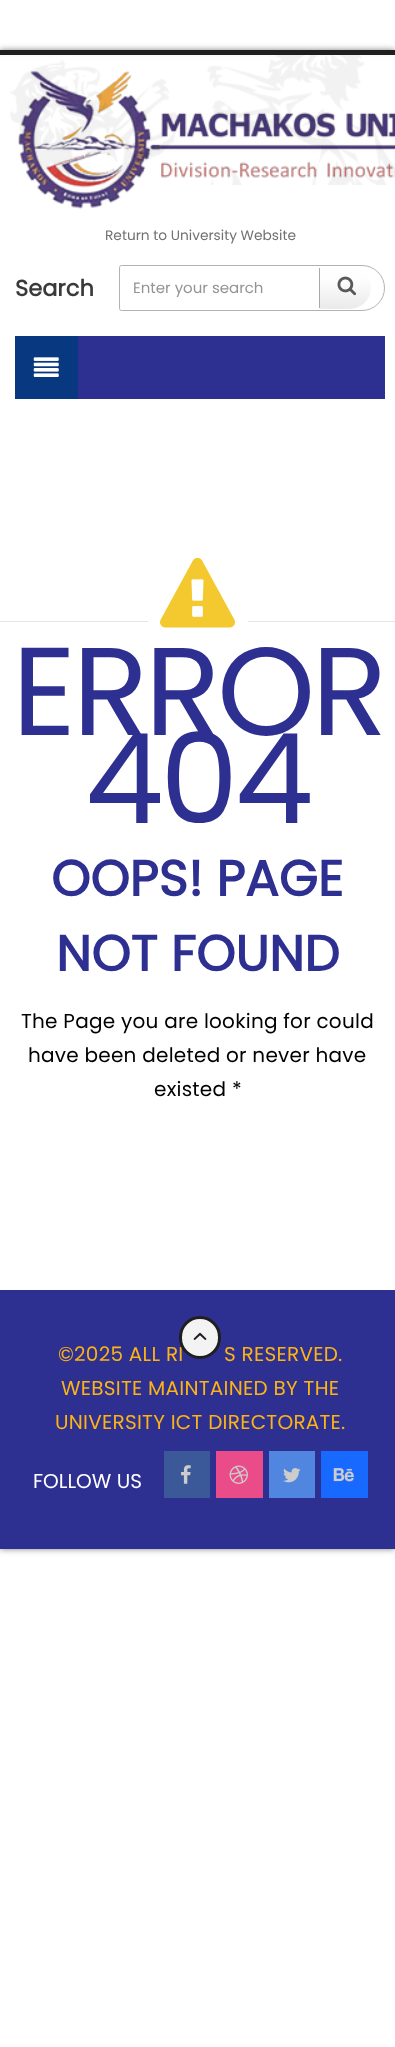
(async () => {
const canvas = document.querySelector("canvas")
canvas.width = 395
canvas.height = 2047
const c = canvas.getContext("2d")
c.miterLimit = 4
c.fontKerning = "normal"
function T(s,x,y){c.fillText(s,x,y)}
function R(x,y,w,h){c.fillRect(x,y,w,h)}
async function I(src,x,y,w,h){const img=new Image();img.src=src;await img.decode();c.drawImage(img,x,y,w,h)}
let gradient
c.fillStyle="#fff"
R(0,0,395,2047)
c.fillStyle="#00000080"
c.filter="blur(3px)"
c.beginPath()
c.rect(0,50,395,1499)
c.fill()
c.filter="none"
c.fillStyle="#fff"
R(0,57,395,1233)
c.fillStyle="#1f1f1f"
R(0,50,395,5)
c.fillStyle="#fcfcfc"
R(0,55,395,2)
await I("2.png",18,71,377,138)
await I("1.png",10,55,385,130)
c.font="13.75px Poppins"
c.fillStyle="#717171"
T("Return to University Website",105,240)
c.font="bold 22.5px Poppins"
c.fillStyle="#3a3a3a"
T("Search",15,296)
c.beginPath()
c.roundRect(119.5,265.5,265,45,[2,22.5,22.5,2])
c.strokeStyle="#b2b2b2"
c.stroke()
c.font="15px Poppins"
c.fillStyle="#949494"
T("Enter your search",133,293)
gradient = c.createLinearGradient(346,266,346,309)
gradient.addColorStop(.29,"#fefefe")
gradient.addColorStop(1,"#eaeaea")
c.fillStyle = gradient
c.beginPath()
c.roundRect(319,266,52,43,[2,21.5,21.5,2])
c.fill()
c.fillStyle="#a9a9a9"
R(319,268,1,40)
await I("3.png",337,276,20,20)
c.fillStyle="#2e3091"
R(78,336,307,63)
c.fillStyle="#08387f"
R(15,336,63,63)
await I("4.png",33,357,26,20)
c.fillStyle="#e5e5e5"
R(0,621,148,1)
await I("5.png",160,558,75,70)
R(248,621,147,1)
c.letterSpacing="-3.75px"
c.font="125px Poppins"
c.fillStyle="#2e3091"
T("ERROR",12,735)
T("404",85,823)
c.letterSpacing="0px"
c.font="bold 50px Poppins"
T("OOPS! PAGE",51,896)
T("NOT FOUND",56,971)
c.letterSpacing="0.25px"
c.font="20px Poppins"
c.fillStyle="#000"
T("The Page you are looking for could",21,1028)
T("have been deleted or never have",28,1062)
T("existed *",154,1096)
c.fillStyle="#2e3091"
R(0,1290,395,259)
c.fillStyle="#fcb315"
T("©2025 ALL RI",58,1361)
T("S RESERVED.",224,1361)
T("WEBSITE MAINTAINED BY THE",61,1395)
T("UNIVERSITY ICT DIRECTORATE.",55,1429)
c.fillStyle="#f3f3f3"
c.beginPath()
c.roundRect(180.5,1317.5,39,40,19.5)
c.fill()
c.strokeStyle="#1f1f1f"
c.lineWidth=3
c.stroke()
await I("6.png",193,1332,14,8)
c.letterSpacing="0px"
c.fillStyle="#fff"
T("FOLLOW US",33,1488)
c.fillStyle="#3b5998"
R(164,1451,46,47)
await I("7.png",181,1465,10,19)
c.fillStyle="#ea4c89"
R(216,1451,47,47)
await I("8.png",229,1465,19,19)
c.fillStyle="#5086df"
R(269,1451,46,47)
await I("9.png",283,1468,18,15)
c.fillStyle="#1769ff"
R(321,1451,47,47)
await I("10.png",333,1468,21,14)
})()
